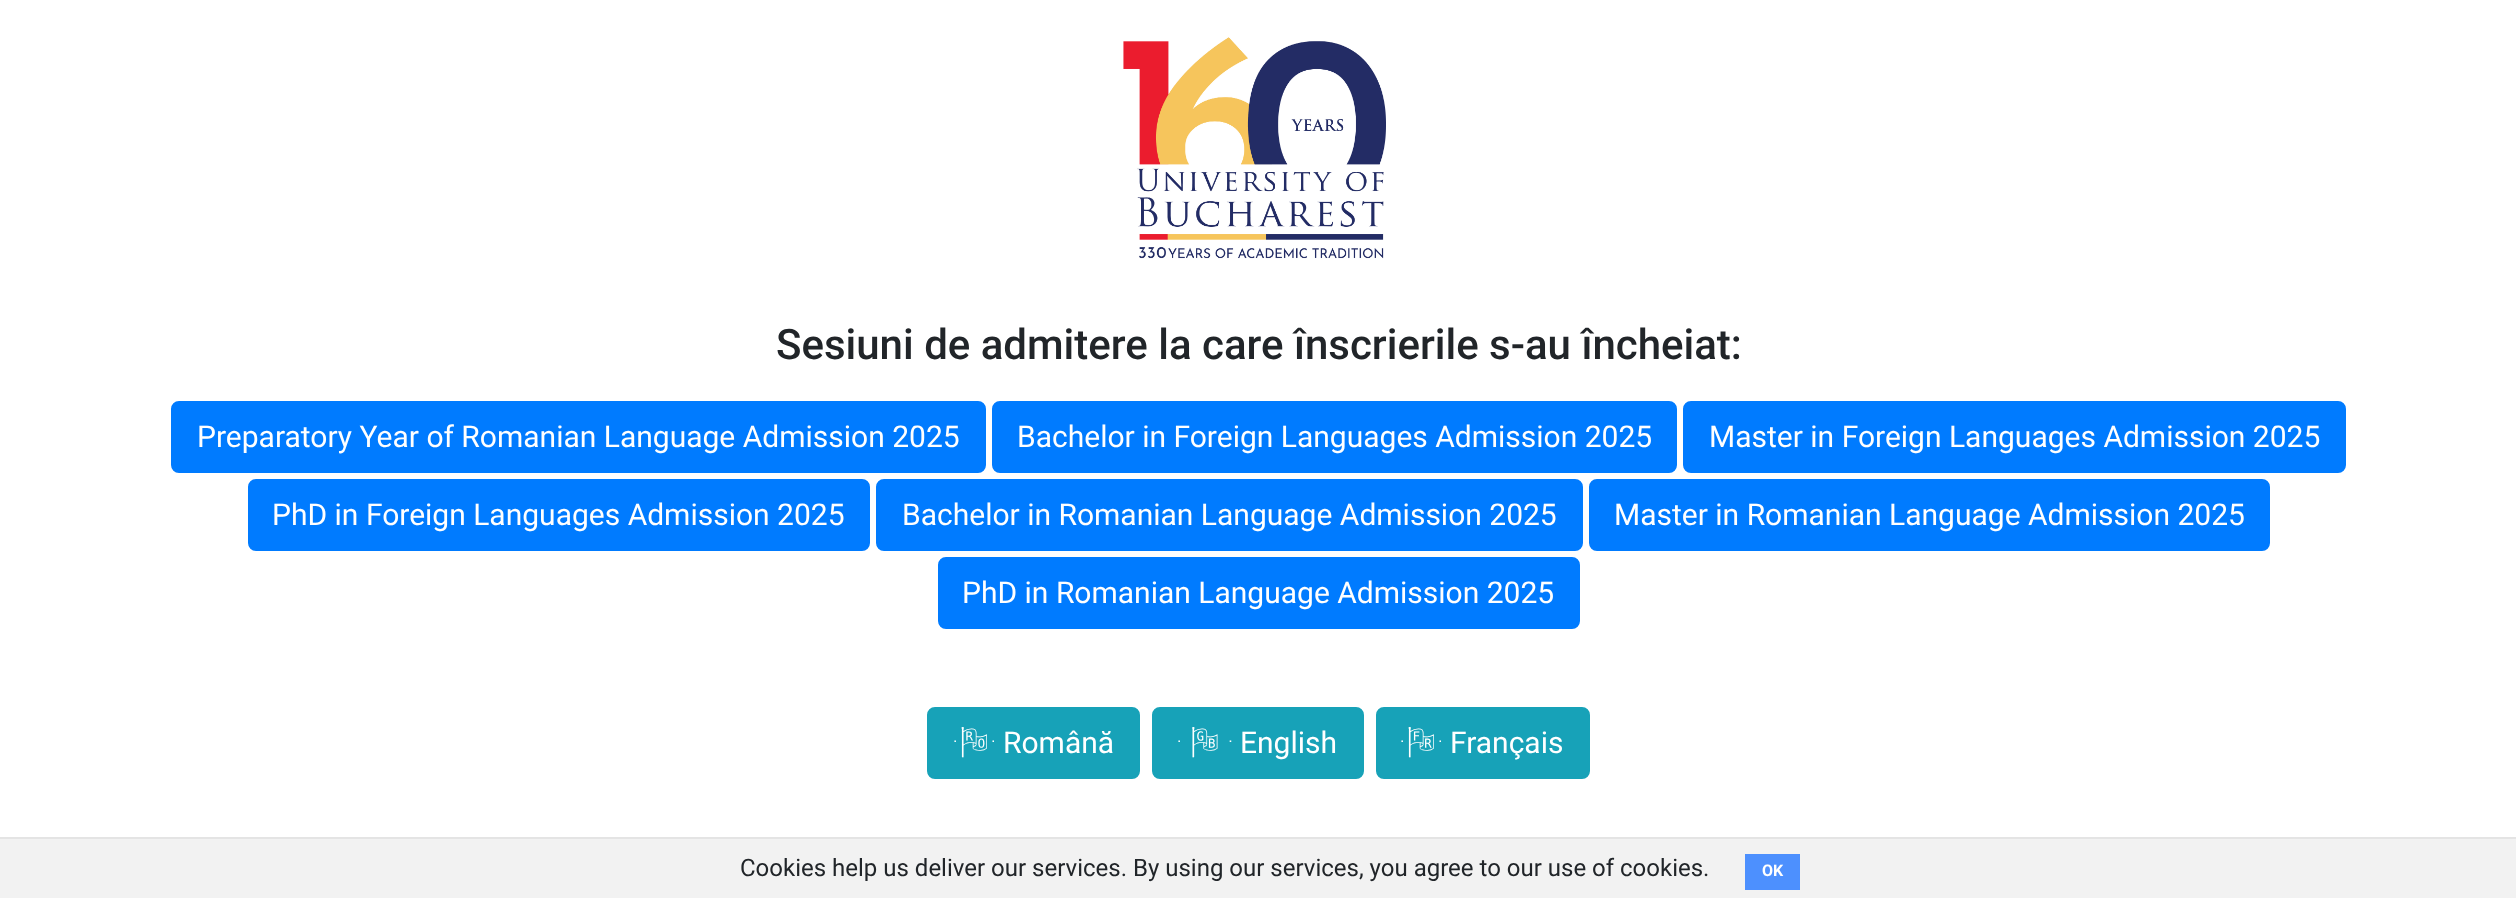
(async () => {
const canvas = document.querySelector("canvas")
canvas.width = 2516
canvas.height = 898
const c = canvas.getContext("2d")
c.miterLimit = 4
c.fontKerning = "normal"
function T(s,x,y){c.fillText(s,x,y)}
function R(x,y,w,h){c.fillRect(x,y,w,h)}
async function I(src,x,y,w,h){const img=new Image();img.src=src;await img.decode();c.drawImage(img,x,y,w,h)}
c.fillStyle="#fff"
R(0,0,2516,898)
await I("1.png",1123,37,263,222)
c.font="500 42px Roboto"
c.fillStyle="#212529"
T("Sesiuni de admitere la care înscrierile s-au încheiat:",776,359)
c.fillStyle="#007bff"
c.beginPath()
c.roundRect(172,402,813,70,7)
c.fill()
c.strokeStyle="#007bff"
c.lineWidth=2
c.stroke()
c.font="30px Roboto"
c.fillStyle="#fff"
T("Preparatory Year of Romanian Language Admission 2025",197,447)
c.fillStyle="#007bff"
c.beginPath()
c.roundRect(993,402,683,70,7)
c.fill()
c.stroke()
c.fillStyle="#fff"
T("Bachelor in Foreign Languages Admission 2025",1017,447)
c.fillStyle="#007bff"
c.beginPath()
c.roundRect(1684,402,661,70,7)
c.fill()
c.stroke()
c.fillStyle="#fff"
T("Master in Foreign Languages Admission 2025",1709,447)
c.fillStyle="#007bff"
c.beginPath()
c.roundRect(249,480,620,70,7)
c.fill()
c.stroke()
c.fillStyle="#fff"
T("PhD in Foreign Languages Admission 2025",272,525)
c.fillStyle="#007bff"
c.beginPath()
c.roundRect(877,480,705,70,7)
c.fill()
c.stroke()
c.fillStyle="#fff"
T("Bachelor in Romanian Language Admission 2025",902,525)
c.fillStyle="#007bff"
c.beginPath()
c.roundRect(1590,480,679,70,7)
c.fill()
c.stroke()
c.fillStyle="#fff"
T("Master in Romanian Language Admission 2025",1614,525)
c.fillStyle="#007bff"
c.beginPath()
c.roundRect(939,558,640,70,7)
c.fill()
c.stroke()
c.fillStyle="#fff"
T("PhD in Romanian Language Admission 2025",962,603)
c.fillStyle="#17a2b8"
c.beginPath()
c.roundRect(928,708,211,70,7)
c.fill()
c.strokeStyle="#17a2b8"
c.stroke()
c.font="30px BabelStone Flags"
c.fillStyle="#fff"
T("🇷🇴",953,753)
c.font="30px Roboto"
T("Română",1003,753)
c.fillStyle="#17a2b8"
c.beginPath()
c.roundRect(1153,708,210,70,7)
c.fill()
c.stroke()
c.font="30px BabelStone Flags"
c.fillStyle="#fff"
T("🇬🇧",1177,753)
c.font="30px Roboto"
T("English",1240,753)
c.fillStyle="#17a2b8"
c.beginPath()
c.roundRect(1377,708,212,70,7)
c.fill()
c.stroke()
c.font="30px BabelStone Flags"
c.fillStyle="#fff"
T("🇫🇷",1400,753)
c.font="30px Roboto"
T("Français",1450,753)
c.fillStyle="#f2f2f2"
R(0,839,2516,59)
c.fillStyle="#e4e4e4"
R(0,837,2516,2)
c.font="24px Roboto"
c.fillStyle="#212529"
T("Cookies help us deliver our services. By using our services, you agree to our use of cookies.",740,876)
c.fillStyle="#4d90fe"
R(1745,854,55,36)
c.font="bold 16px Roboto"
c.fillStyle="#fff"
T("OK",1762,876)
})()
